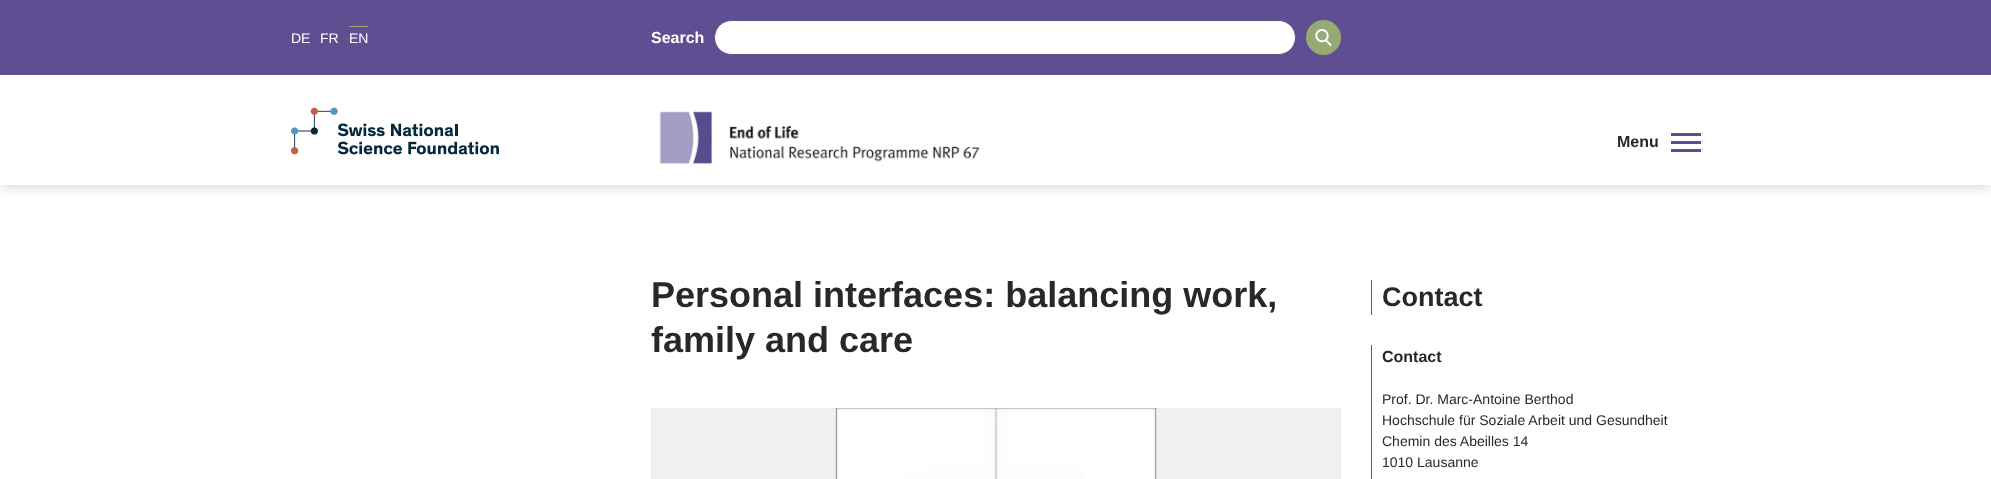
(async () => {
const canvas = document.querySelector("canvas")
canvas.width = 1991
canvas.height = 479
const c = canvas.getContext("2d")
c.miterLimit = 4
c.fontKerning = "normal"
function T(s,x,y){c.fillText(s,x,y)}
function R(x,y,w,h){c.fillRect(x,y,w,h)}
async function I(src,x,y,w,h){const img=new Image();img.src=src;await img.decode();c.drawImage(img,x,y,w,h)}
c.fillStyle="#fff"
R(0,0,1991,479)
c.save()
c.beginPath()
c.rect(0,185,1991,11)
c.clip()
c.fillStyle="#28282840"
c.filter="blur(7.5px)"
c.beginPath()
c.rect(0,0,1991,185)
c.fill()
c.filter="none"
c.restore()
c.fillStyle="#5f4e92"
R(0,0,1991,75)
c.font="14px Liberation Sans"
c.fillStyle="#fff"
T("DE",291,43)
T("FR",320,43)
c.fillStyle="#96ab73"
R(349,26,19,1)
c.fillStyle="#fff"
T("EN",349,43)
c.font="bold 16px Liberation Sans"
T("Search",651,43)
c.beginPath()
c.roundRect(714.5,20.5,581,34,17)
c.fill()
c.strokeStyle="#5f4e92"
c.stroke()
c.fillStyle="#96ab73"
c.beginPath()
c.arc(1323.5,37.5,17.5,0,7)
c.fill()
await I("1.png",1315,29,17,17)
await I("2.png",291,107,208,48)
await I("3.png",659,111,321,54)
c.fillStyle="#282828"
T("Menu",1617,147)
c.fillStyle="#5f4e92"
R(1671,141,30,3)
R(1671,133,30,3)
R(1671,149,30,3)
c.font="bold 36px Liberation Sans"
c.fillStyle="#282828"
T("Personal interfaces: balancing work,",651,307)
T("family and care",651,352)
await I("4.png",651,408,690,71)
c.fillStyle="#5f4e92"
R(1371,280,1,35)
c.font="bold 27px Liberation Sans"
c.fillStyle="#282828"
T("Contact",1382,306)
c.fillStyle="#5f4e92"
R(1371,345,1,134)
c.font="bold 16px Liberation Sans"
c.fillStyle="#282828"
T("Contact",1382,362)
c.font="14px Liberation Sans"
T("Prof. Dr. Marc-Antoine Berthod",1382,404)
T("Hochschule für Soziale Arbeit und Gesundheit",1382,425)
T("Chemin des Abeilles 14",1382,446)
T("1010 Lausanne",1382,467)
})()
